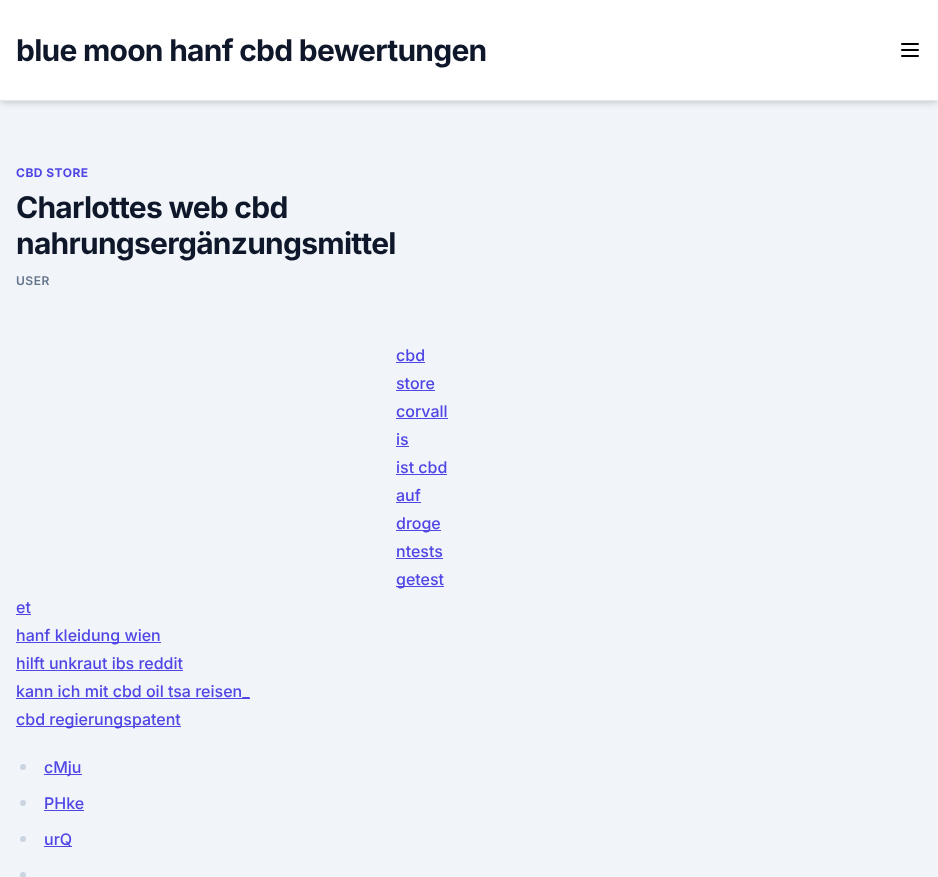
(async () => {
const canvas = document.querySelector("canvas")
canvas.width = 938
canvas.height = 877
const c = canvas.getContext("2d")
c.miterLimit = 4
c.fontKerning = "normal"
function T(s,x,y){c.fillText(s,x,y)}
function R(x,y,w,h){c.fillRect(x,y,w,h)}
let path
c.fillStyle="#f1f5f9"
R(0,0,938,877)
c.fillStyle="#0000000f"
c.filter="blur(2px)"
c.beginPath()
c.rect(1,3,936,99)
c.fill()
c.filter="none"
c.fillStyle="#0000001a"
c.filter="blur(3px)"
c.beginPath()
c.rect(1,5,936,99)
c.fill()
c.filter="none"
c.fillStyle="#fff"
R(0,0,938,100)
c.letterSpacing="-0.75px"
c.font="bold 30px Inter"
c.fillStyle="#0f172a"
T("blue moon hanf cbd bewertungen",16,61)
path = new Path2D("M902 44h16m-16 6h16m-16 6h16")
c.strokeStyle="#000"
c.lineWidth=2
c.lineCap="round"
c.lineJoin="round"
c.stroke(path)
c.fillStyle="#e2e8f0"
R(0,100,938,1)
c.letterSpacing="0.5px"
c.font="bold 12px Inter"
c.fillStyle="#4f46e5"
T("CBD STORE",16,177)
c.letterSpacing="-0.75px"
c.font="bold 30px Inter"
c.fillStyle="#0f172a"
T("Charlottes web cbd",16,218)
T("nahrungsergänzungsmittel",16,254)
c.letterSpacing="0.5px"
c.font="600 12px Inter"
c.fillStyle="#64748b"
T("USER",16,285)
c.letterSpacing="0px"
c.font="500 16px Inter"
c.fillStyle="#4f46e5"
T("cbd",396,361)
R(396,362,29,1)
T("store",396,389)
R(396,390,39,1)
T("corvall",396,417)
R(396,418,52,1)
T("is",396,445)
R(396,446,13,1)
T("ist cbd",396,473)
R(396,474,51,1)
T("auf",396,501)
R(396,502,25,1)
R(396,530,45,1)
T("droge",396,529)
T("ntests",396,557)
R(396,558,47,1)
R(396,586,48,1)
T("getest",396,585)
T("et",16,613)
R(16,614,15,1)
R(16,642,145,1)
T("hanf kleidung wien",16,641)
T("hilft unkraut ibs reddit",16,669)
R(16,670,167,1)
R(16,698,234,1)
T("kann ich mit cbd oil tsa reisen_",16,697)
R(16,726,165,1)
T("cbd regierungspatent",16,725)
c.fillStyle="#cbd5e1"
c.beginPath()
c.arc(23,767,3,0,7)
c.fill()
c.fillStyle="#4f46e5"
R(44,774,38,1)
T("cMju",44,773)
c.fillStyle="#cbd5e1"
c.beginPath()
c.arc(23,803,3,0,7)
c.fill()
c.fillStyle="#4f46e5"
T("PHke",44,809)
R(44,810,40,1)
c.fillStyle="#cbd5e1"
c.beginPath()
c.arc(23,839,3,0,7)
c.fill()
c.fillStyle="#4f46e5"
R(44,846,28,1)
T("urQ",44,845)
c.fillStyle="#cbd5e1"
c.beginPath()
c.arc(23,875,3,0,7)
c.fill()
})()
